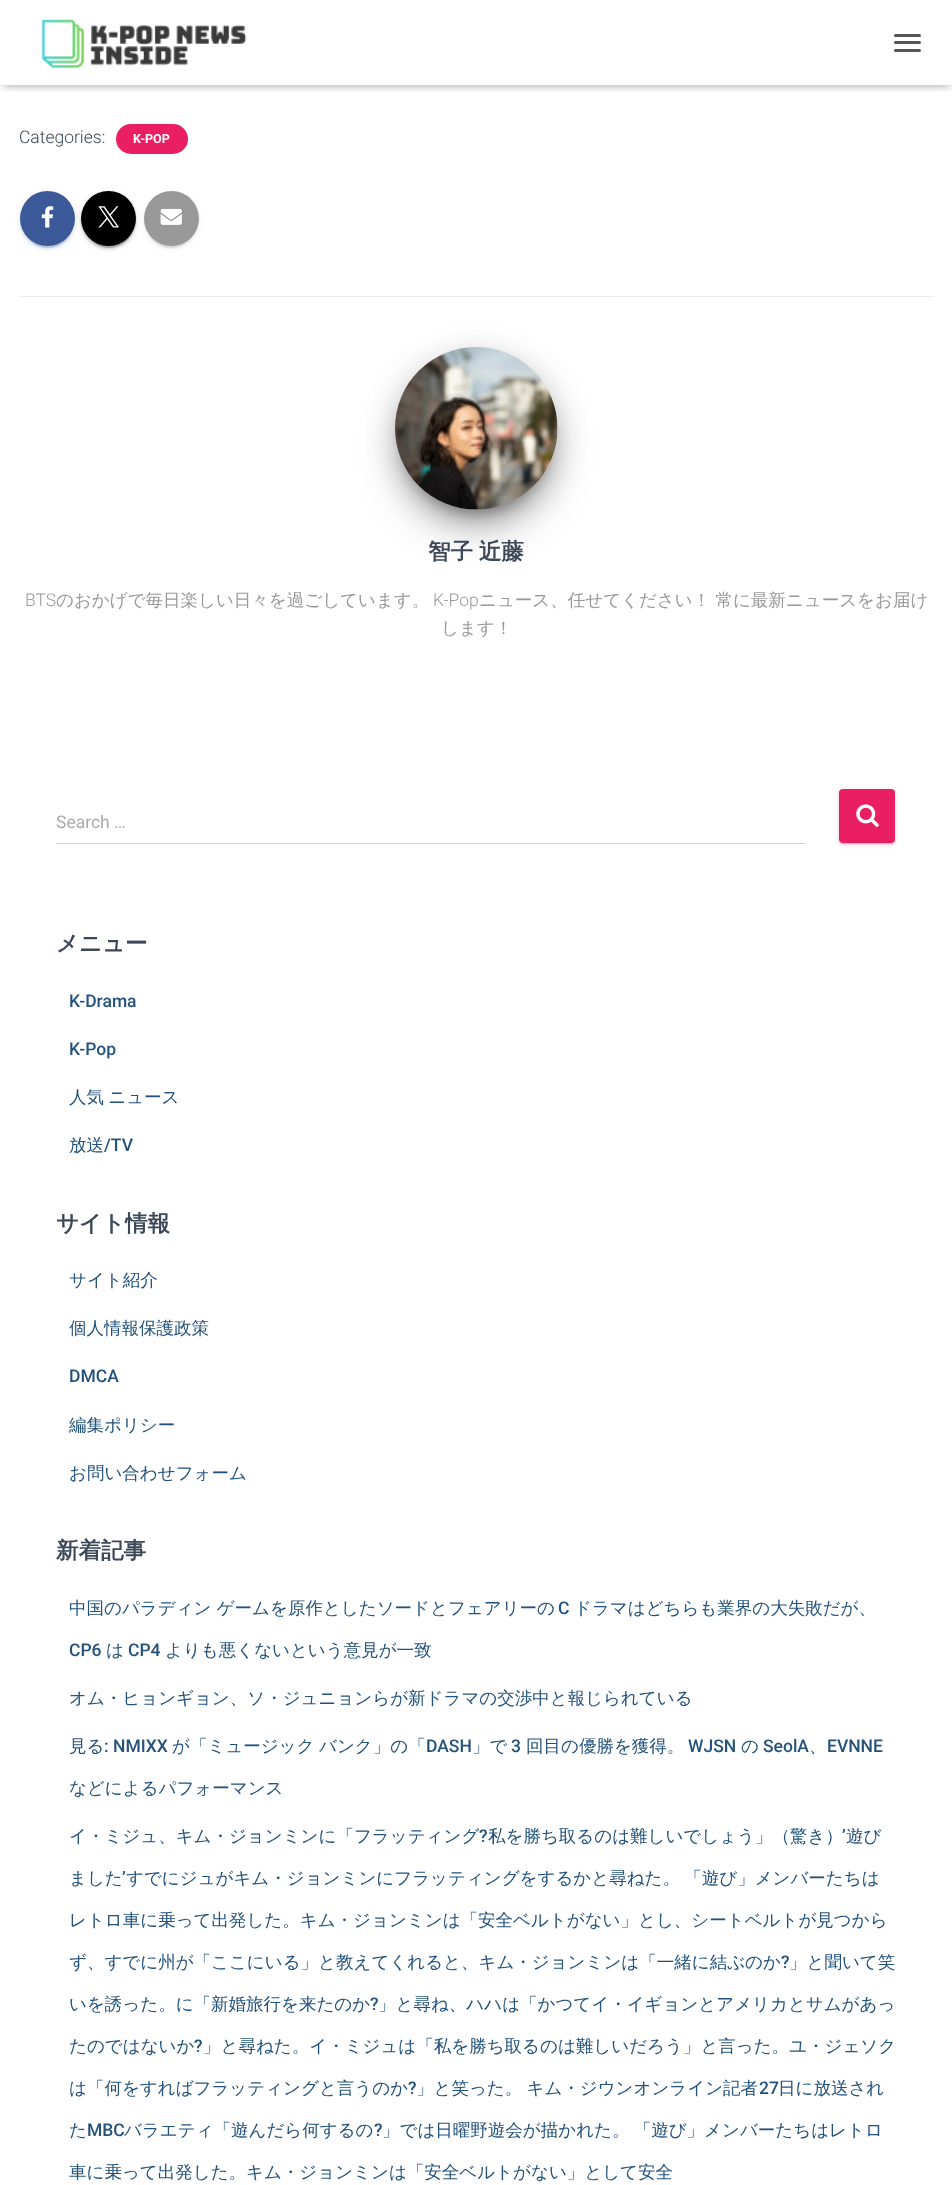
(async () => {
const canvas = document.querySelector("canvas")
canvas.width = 952
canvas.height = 2185
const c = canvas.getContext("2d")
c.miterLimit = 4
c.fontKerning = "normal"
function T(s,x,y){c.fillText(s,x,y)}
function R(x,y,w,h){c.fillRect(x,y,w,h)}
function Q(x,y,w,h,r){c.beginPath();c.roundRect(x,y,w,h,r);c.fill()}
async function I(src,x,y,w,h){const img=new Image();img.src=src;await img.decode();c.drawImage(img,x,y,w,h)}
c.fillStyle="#fff"
R(0,0,952,2185)
c.save()
c.beginPath()
c.rect(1,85,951,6)
c.clip()
c.fillStyle="#0000001a"
c.filter="blur(3px)"
c.beginPath()
c.rect(3,8,947,80)
c.fill()
c.filter="none"
c.restore()
c.save()
c.beginPath()
c.rect(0,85,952,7)
c.clip()
c.fillStyle="#0000001f"
c.filter="blur(6px)"
c.beginPath()
c.rect(0,1,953,85)
c.fill()
c.filter="none"
c.restore()
c.save()
c.beginPath()
c.rect(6,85,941,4)
c.clip()
c.fillStyle="#0000006b"
c.filter="blur(6px)"
c.beginPath()
c.rect(8,9,937,70)
c.fill()
c.filter="none"
c.restore()
await I("1.png",41,18,206,51)
c.fillStyle="#555"
Q(894,34,27,3,1.5)
Q(894,41,27,3,1.5)
Q(894,49,27,3,1.5)
c.font="300 17.5px Roboto"
c.fillStyle="#3c4858"
T("Categories:",19,143)
c.fillStyle="#e91e63"
Q(116,124,72,30,15)
c.font="bold 12.5px Roboto"
c.fillStyle="#fff"
T("K-POP",133,143)
c.fillStyle="#3b59981f"
c.filter="blur(3px)"
c.beginPath()
c.roundRect(20,193,55,55,27.5)
c.fill()
c.filter="none"
c.fillStyle="#3b599833"
c.filter="blur(0.5px)"
c.beginPath()
c.roundRect(23,198,50,50,25)
c.fill()
c.filter="none"
c.fillStyle="#3b599824"
c.filter="blur(1px)"
c.beginPath()
c.roundRect(20,194,55,55,27.5)
c.fill()
c.filter="none"
c.fillStyle="#3b5998"
c.beginPath()
c.arc(47.5,218.5,27.5,0,7)
c.fill()
await I("2.png",41,206,13,22)
c.fillStyle="#0000001f"
c.filter="blur(3px)"
c.beginPath()
c.roundRect(81,193,55,55,27.5)
c.fill()
c.filter="none"
c.fillStyle="#00000033"
c.filter="blur(0.5px)"
c.beginPath()
c.roundRect(84,198,50,50,25)
c.fill()
c.filter="none"
c.fillStyle="#00000024"
c.filter="blur(1px)"
c.beginPath()
c.roundRect(81,194,55,55,27.5)
c.fill()
c.filter="none"
c.fillStyle="#000"
c.beginPath()
c.arc(108.5,218.5,27.5,0,7)
c.fill()
await I("3.png",98,206,21,22)
c.fillStyle="#9999991f"
c.filter="blur(3px)"
c.beginPath()
c.roundRect(144,193,55,55,27.5)
c.fill()
c.filter="none"
c.fillStyle="#99999933"
c.filter="blur(0.5px)"
c.beginPath()
c.roundRect(146,198,50,50,25)
c.fill()
c.filter="none"
c.fillStyle="#99999924"
c.filter="blur(1px)"
c.beginPath()
c.roundRect(144,194,55,55,27.5)
c.fill()
c.filter="none"
c.fillStyle="#999"
c.beginPath()
c.arc(171.5,218.5,27.5,0,7)
c.fill()
await I("4.png",160,208,22,17)
c.fillStyle="#eee"
R(19,296,915,1)
c.fillStyle="#00000033"
c.filter="blur(6px)"
c.beginPath()
c.roundRect(401,364,150,150,75)
c.fill()
c.filter="none"
c.fillStyle="#0000001f"
c.filter="blur(15.5px)"
c.beginPath()
c.roundRect(395,353,163,162,81)
c.fill()
c.filter="none"
c.fillStyle="#0000008f"
c.filter="blur(24px)"
c.beginPath()
c.roundRect(410,383,133,132,66)
c.fill()
c.filter="none"
await I("5.png",395,347,163,163)
c.wordSpacing="-1px"
c.font="bold 22.5px WenQuanYi Zen Hei"
c.fillStyle="#3c4858"
T("智子 近藤",428,559)
c.wordSpacing="0px"
c.font="300 17.5px Roboto"
c.fillStyle="#999"
T("BTS",25,606)
c.font="500 17.5px WenQuanYi Zen Hei"
T("のおかげで毎日楽しい日々を過ごしています。",56,606)
c.font="300 17.5px Roboto"
T("K-Pop",433,606)
c.font="500 17.5px WenQuanYi Zen Hei"
T("ニュース、任せてください！ 常に最新ニュースをお届け",479,606)
T("します！",441,634)
c.font="17.5px Roboto"
c.fillStyle="#aaa"
T("Search …",56,828)
c.fillStyle="#d2d2d2"
R(56,843,750,1)
c.fillStyle="#e91e631f"
c.filter="blur(3px)"
c.beginPath()
c.roundRect(839,790,56,54,4)
c.fill()
c.filter="none"
c.fillStyle="#e91e6333"
c.filter="blur(0.5px)"
c.beginPath()
c.roundRect(841,795,52,49,1)
c.fill()
c.filter="none"
c.fillStyle="#e91e6324"
c.filter="blur(1px)"
c.beginPath()
c.roundRect(839,791,56,54,4)
c.fill()
c.filter="none"
c.fillStyle="#e91e63"
Q(839,789,56,54,4)
await I("6.png",856,804,23,23)
c.font="bold 22.5px WenQuanYi Zen Hei"
c.fillStyle="#3c4858"
T("メニュー",56,951)
c.font="500 17.5px Roboto"
c.fillStyle="#23527c"
T("K-Drama",69,1007)
T("K-Pop",69,1055)
c.wordSpacing="-1px"
c.font="500 17.5px WenQuanYi Zen Hei"
T("人気 ニュース",69,1103)
c.wordSpacing="0px"
T("放送",69,1151)
c.font="500 17.5px Roboto"
T("/TV",104,1151)
c.font="bold 22.5px WenQuanYi Zen Hei"
c.fillStyle="#3c4858"
T("サイト情報",56,1231)
c.font="500 17.5px WenQuanYi Zen Hei"
c.fillStyle="#23527c"
T("サイト紹介",69,1286)
T("個人情報保護政策",69,1334)
c.font="500 17.5px Roboto"
T("DMCA",69,1382)
c.font="500 17.5px WenQuanYi Zen Hei"
T("編集ポリシー",69,1431)
T("お問い合わせフォーム",69,1479)
c.font="bold 22.5px WenQuanYi Zen Hei"
c.fillStyle="#3c4858"
T("新着記事",56,1558)
c.font="500 17.5px WenQuanYi Zen Hei"
c.fillStyle="#23527c"
T("中国のパラディン ゲームを原作としたソードとフェアリーの",69,1614)
c.font="500 17.5px Roboto"
T("C",558,1614)
c.font="500 17.5px WenQuanYi Zen Hei"
T("ドラマはどちらも業界の大失敗だが、",574,1614)
c.font="500 17.5px Roboto"
T("CP6",69,1656)
c.font="500 17.5px WenQuanYi Zen Hei"
T("は",106,1656)
c.font="500 17.5px Roboto"
T("CP4",128,1656)
c.font="500 17.5px WenQuanYi Zen Hei"
T("よりも悪くないという意見が一致",165,1656)
T("オム・ヒョンギョン、ソ・ジュニョンらが新ドラマの交渉中と報じられている",69,1704)
T("見る",69,1752)
c.font="500 17.5px Roboto"
T(": NMIXX",104,1752)
c.font="500 17.5px WenQuanYi Zen Hei"
T("が「ミュージック",172,1752)
T("バンク」の「",319,1752)
c.font="500 17.5px Roboto"
T("DASH",426,1752)
c.font="500 17.5px WenQuanYi Zen Hei"
T("」で",472,1752)
c.font="500 17.5px Roboto"
T("3",511,1752)
c.font="500 17.5px WenQuanYi Zen Hei"
T("回目の優勝を獲得。",526,1752)
c.font="500 17.5px Roboto"
T("WJSN",688,1752)
c.font="500 17.5px WenQuanYi Zen Hei"
T("の",741,1752)
c.font="500 17.5px Roboto"
T("SeolA",763,1752)
c.font="500 17.5px WenQuanYi Zen Hei"
T("、",809,1752)
c.font="500 17.5px Roboto"
T("EVNNE",827,1752)
c.font="500 17.5px WenQuanYi Zen Hei"
T("などによるパフォーマンス",69,1794)
T("イ・ミジュ、キム・ジョンミンに「フラッティング",69,1842)
c.font="500 17.5px Roboto"
T("?",479,1842)
c.font="500 17.5px WenQuanYi Zen Hei"
T("私を勝ち取るのは難しいでしょう」（驚き）",488,1842)
c.font="500 17.5px Roboto"
T("’",842,1842)
c.font="500 17.5px WenQuanYi Zen Hei"
T("遊び",846,1842)
T("ました",69,1884)
c.font="500 17.5px Roboto"
T("’",122,1884)
c.wordSpacing="-1px"
c.font="500 17.5px WenQuanYi Zen Hei"
T("すでにジュがキム・ジョンミンにフラッティングをするかと尋ねた。 「遊び」メンバーたちは",126,1884)
c.wordSpacing="0px"
T("レトロ車に乗って出発した。キム・ジョンミンは「安全ベルトがない」とし、シートベルトが見つから",69,1926)
T("ず、すでに州が「ここにいる」と教えてくれると、キム・ジョンミンは「一緒に結ぶのか",69,1968)
c.font="500 17.5px Roboto"
T("?",781,1968)
c.font="500 17.5px WenQuanYi Zen Hei"
T("」と聞いて笑",789,1968)
T("いを誘った。に「新婚旅行を来たのか",69,2010)
c.font="500 17.5px Roboto"
T("?",370,2010)
c.font="500 17.5px WenQuanYi Zen Hei"
T("」と尋ね、ハハは「かつてイ・イギョンとアメリカとサムがあっ",378,2010)
T("たのではないか",69,2052)
c.font="500 17.5px Roboto"
T("?",194,2052)
c.font="500 17.5px WenQuanYi Zen Hei"
T("」と尋ねた。イ・ミジュは「私を勝ち取るのは難しいだろう」と言った。ユ・ジェソク",203,2052)
T("は「何をすればフラッティングと言うのか",69,2094)
c.font="500 17.5px Roboto"
T("?",408,2094)
c.wordSpacing="-1px"
c.font="500 17.5px WenQuanYi Zen Hei"
T("」と笑った。 キム・ジウンオンライン記者",416,2094)
c.wordSpacing="0px"
c.font="500 17.5px Roboto"
T("27",759,2094)
c.font="500 17.5px WenQuanYi Zen Hei"
T("日に放送され",778,2094)
T("た",69,2136)
c.font="500 17.5px Roboto"
T("MBC",87,2136)
c.font="500 17.5px WenQuanYi Zen Hei"
T("バラエティ「遊んだら何するの",124,2136)
c.font="500 17.5px Roboto"
T("?",374,2136)
c.wordSpacing="-1px"
c.font="500 17.5px WenQuanYi Zen Hei"
T("」では日曜野遊会が描かれた。 「遊び」メンバーたちはレトロ",382,2136)
c.wordSpacing="0px"
T("車に乗って出発した。キム・ジョンミンは「安全ベルトがない」として安全",69,2178)
})()
